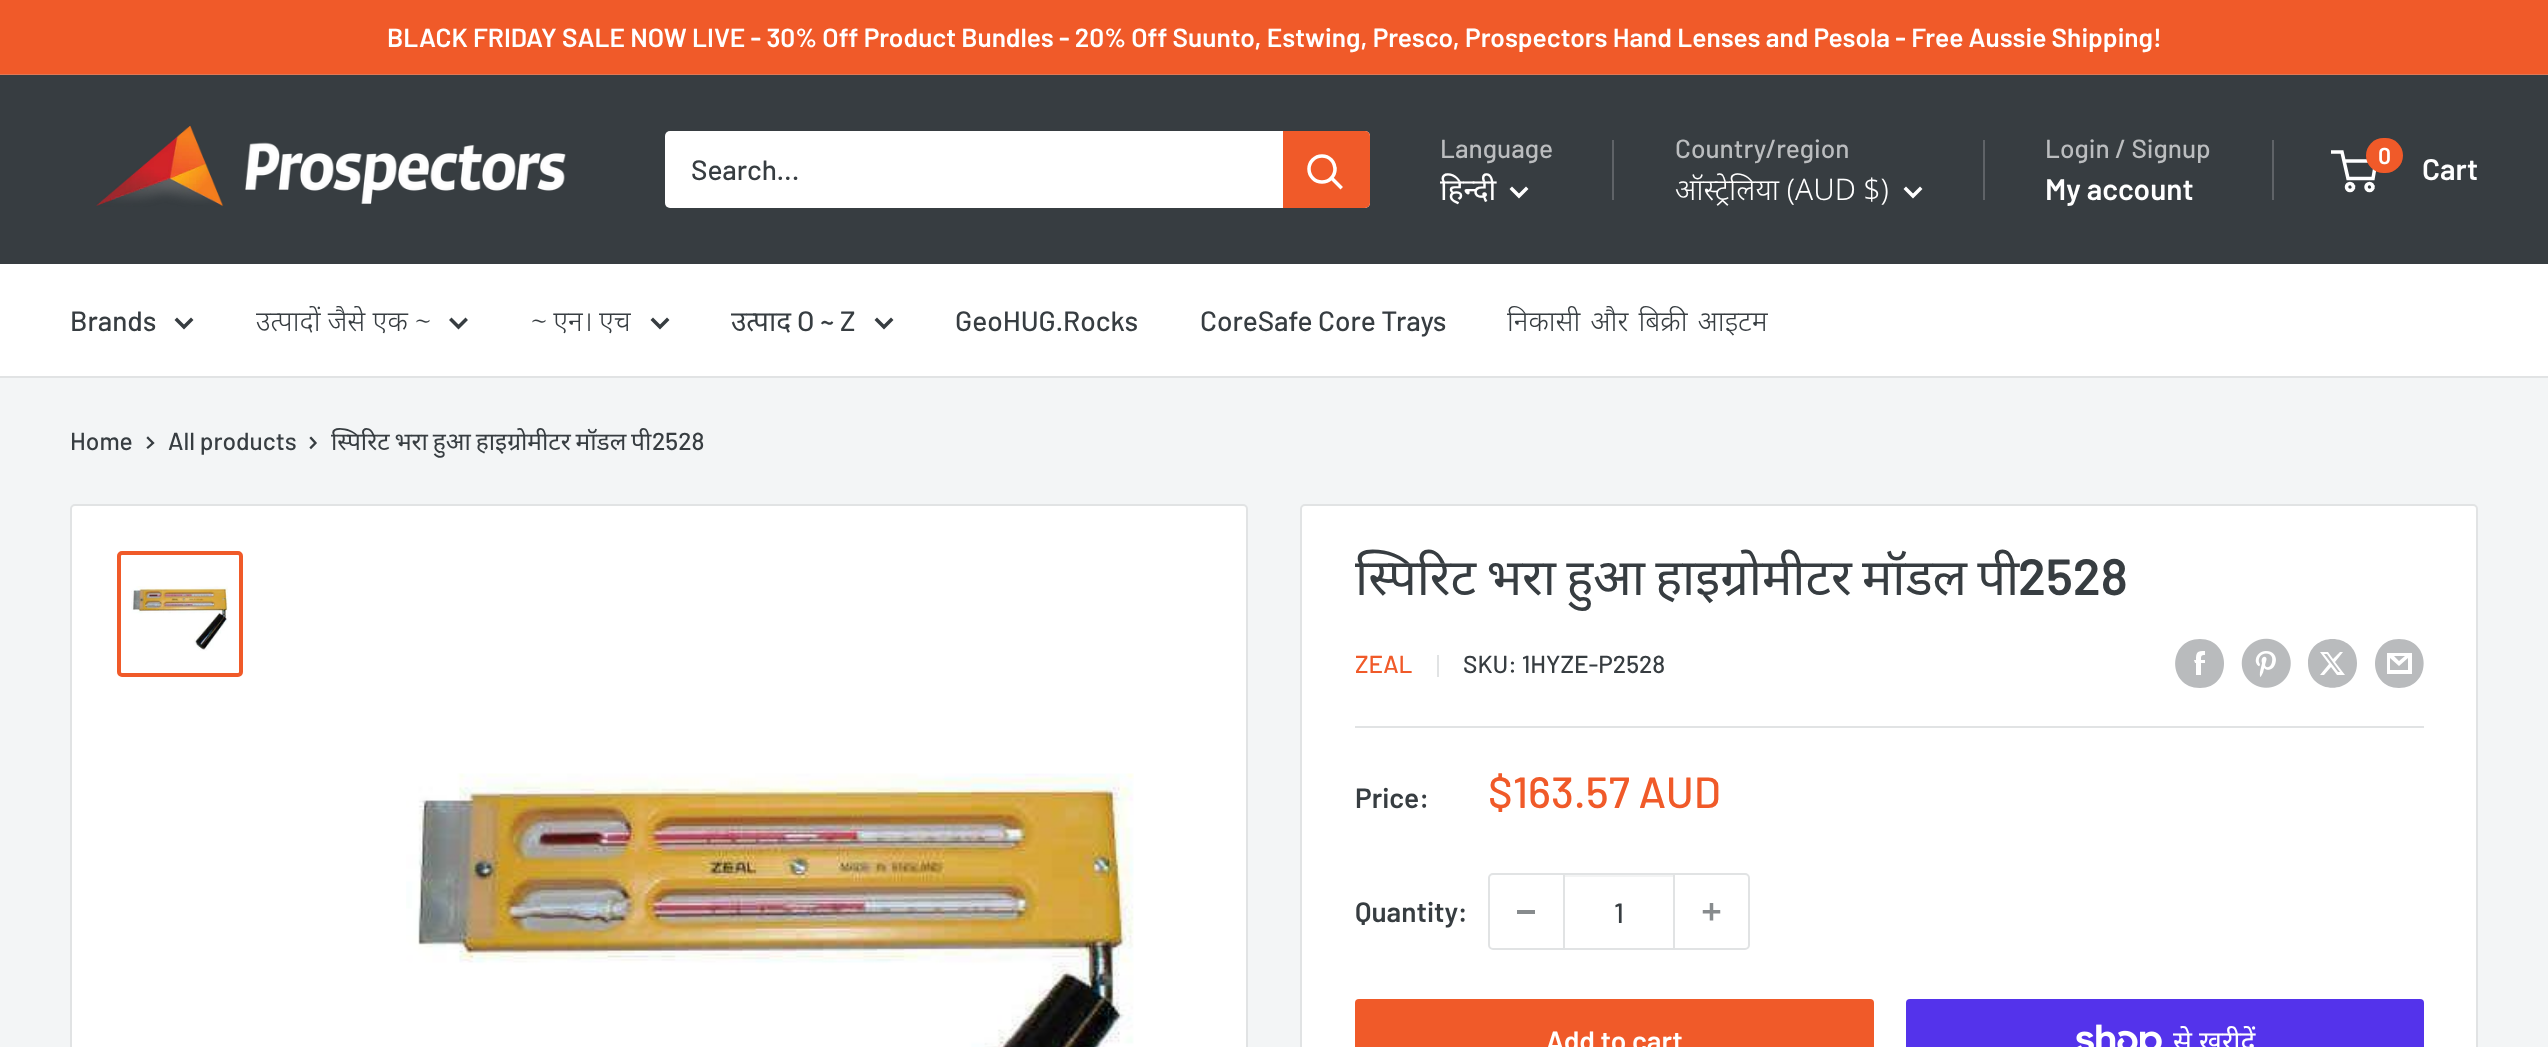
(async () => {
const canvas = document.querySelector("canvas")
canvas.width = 2548
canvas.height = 1047
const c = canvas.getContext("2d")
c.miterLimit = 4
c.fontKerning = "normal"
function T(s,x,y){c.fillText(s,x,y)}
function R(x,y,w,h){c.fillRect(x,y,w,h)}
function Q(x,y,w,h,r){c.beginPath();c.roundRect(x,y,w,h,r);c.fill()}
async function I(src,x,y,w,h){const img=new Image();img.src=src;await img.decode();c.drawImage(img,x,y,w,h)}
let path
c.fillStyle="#f3f5f6"
R(0,0,2548,1047)
c.fillStyle="#f05a29"
R(0,0,2548,74)
c.fillStyle="#e07856"
R(0,74,2548,1)
c.font="600 26.25px Barlow"
c.fillStyle="#fff"
T("BLACK FRIDAY SALE NOW LIVE - 30% Off Product Bundles - 20% Off Suunto, Estwing, Presco, Prospectors Hand Lenses and Pesola - Free Aussie Shipping!",387,47)
c.fillStyle="#373d41"
R(0,75,2548,189)
await I("1.png",96,125,470,82)
c.fillStyle="#fff"
Q(665,131,705,77,5)
c.font="500 28px Barlow"
c.fillStyle="#373d41"
T("Search...",691,180)
c.fillStyle="#f05a29"
c.beginPath()
c.roundRect(1283,131,87,77,[0,5,5,0])
c.fill()
path = new Path2D("M1340.5 187l-8.5-8.5")
c.strokeStyle="#fff"
c.lineWidth=3.5
c.lineCap="square"
c.stroke(path)
c.beginPath()
c.arc(1322,169,13,0,7)
c.stroke()
c.font="500 26.25px Barlow"
c.fillStyle="#bbbdbf"
T("Language",1440,158)
c.font="29.75px Noto Sans"
c.fillStyle="#fff"
T("हिन्दी",1440,200)
path = new Path2D("M1526 189l-7 7l-7-7")
c.stroke(path)
c.fillStyle="#5f6367"
R(1612,140,2,60)
c.font="500 26.25px Barlow"
c.fillStyle="#bbbdbf"
T("Country/region",1675,158)
c.font="300 29.75px Noto Sans"
c.fillStyle="#fff"
T("ऑस्ट्रेलिया (AUD $)",1675,200)
path = new Path2D("M1920 189l-7 7l-7-7")
c.stroke(path)
c.fillStyle="#5f6367"
R(1983,140,2,60)
c.font="500 26.25px Barlow"
c.fillStyle="#bbbdbf"
T("Login / Signup",2045,158)
c.fillStyle="#5f6367"
R(2272,140,2,60)
c.font="600 29.75px Barlow"
c.fillStyle="#fff"
T("My account",2045,200)
c.beginPath()
c.arc(2350,187,3.5,0,7)
c.stroke()
c.beginPath()
c.arc(2369.5,187,3.5,0,7)
c.stroke()
path = new Path2D("M2344 161h32l-3 17.5h-25l-6-26.5h-11")
c.lineCap="butt"
c.stroke(path)
c.fillStyle="#f05a29"
Q(2366,138,37,35,17.5)
c.font="600 23px Barlow"
c.fillStyle="#fff"
T("0",2378,164)
c.font="600 29.75px Barlow"
T("Cart",2422,180)
R(0,264,2548,112)
c.fillStyle="#e1e3e4"
R(0,376,2548,2)
c.font="500 28px Barlow"
c.fillStyle="#373d41"
T("Brands",70,331)
path = new Path2D("M191 320l-7 7l-7-7")
c.strokeStyle="#373d41"
c.lineCap="square"
c.stroke(path)
c.font="300 28px Noto Sans"
T("उत्पादों जैसे एक ~",256,331)
path = new Path2D("M465.5 320l-7 7l-7-7")
c.stroke(path)
c.wordSpacing="-1px"
T("~ एन। एच",531,331)
path = new Path2D("M667 320l-7 7l-7-7")
c.stroke(path)
c.wordSpacing="0px"
c.font="28px Noto Sans"
T("उत्पाद",731,331)
c.font="500 28px Barlow"
T("O ~ Z",797,331)
path = new Path2D("M891 320l-7 7l-7-7")
c.stroke(path)
T("GeoHUG.Rocks",955,331)
T("CoreSafe Core Trays",1200,331)
c.wordSpacing="3px"
c.font="300 28px Noto Sans"
T("निकासी और बिक्री आइटम",1507,331)
c.wordSpacing="0px"
c.font="500 24.5px Barlow"
T("Home",70,450)
path = new Path2D("M148 438l5 5l-5 4.5")
c.lineWidth=2.3
c.stroke(path)
T("All products",168,450)
path = new Path2D("M311 438l4.5 5l-4.5 4.5")
c.stroke(path)
c.wordSpacing="-1.5px"
c.font="24.5px Noto Sans"
T("स्पिरिट भरा हुआ हाइग्रोमीटर मॉडल पी",331,450)
c.wordSpacing="0px"
c.font="500 24.5px Barlow"
T("2528",652,450)
c.fillStyle="#fff"
c.beginPath()
c.roundRect(71,505,1176,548,4)
c.fill()
c.strokeStyle="#e1e3e4"
c.lineWidth=2
c.stroke()
c.beginPath()
c.roundRect(119,553,122,122,3)
c.strokeStyle="#f05a29"
c.lineWidth=4
c.stroke()
await I("2.png",131,586,97,65)
await I("3.png",406,773,728,274)
c.beginPath()
c.roundRect(1301,505,1176,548,4)
c.fill()
c.strokeStyle="#e1e3e4"
c.lineWidth=2
c.stroke()
c.wordSpacing="-3px"
c.font="50.75px Noto Sans"
c.fillStyle="#373d41"
T("स्पिरिट भरा हुआ हाइग्रोमीटर मॉडल पी",1355,595)
c.wordSpacing="0px"
c.font="600 50.75px Barlow"
T("2528",2018,595)
c.font="500 24.5px Barlow"
c.fillStyle="#f05a29"
T("ZEAL",1355,673)
c.fillStyle="#e1e3e4"
R(1437,655,2,22)
c.fillStyle="#373d41"
T("SKU: 1HYZE-P2528",1463,673)
c.fillStyle="#b9bbbd"
path = new Path2D("M2200 688c-33 0-33-49 0-49c32 0 32 49 0 49zm5-28h-4c0-4 0-5 4-5v-4c-8 0-9 1-9 9h-2l1 3h1v12h5v-12h4z")
c.fill(path,"evenodd")
await I("4.png",2241,638,50,50)
path = new Path2D("M2357 663c0 33-49 33-49 0c0-32 49-32 49 0zm-14-11h-3l-7 7l-5-7h-8l9 12l-9 11h4l7-8l6 8h8l-10-13zm-3 20h-2l-14-18h3z")
c.fill(path,"evenodd")
path = new Path2D("M2399 688c-32 0-32-49 0-49c33 0 33 49 0 49zm-5-32h11l-6 5zm14 2v12h-18v-12l9 8zm4-5h-25v21h25z")
c.fill(path)
c.fillStyle="#e1e3e4"
R(1355,726,1069,2)
c.font="600 28px Barlow"
c.fillStyle="#373d41"
T("Price:",1355,808)
c.font="500 43.75px Barlow"
c.fillStyle="#f05a29"
T("$163.57 AUD",1488,808)
c.font="600 28px Barlow"
c.fillStyle="#373d41"
T("Quantity:",1355,922)
c.beginPath()
c.roundRect(1489,874,260,75,4)
c.stroke()
c.fillStyle="#878b8d"
R(1517,910,18,4)
c.fillStyle="#f3f4f4"
R(1565,875,108,2)
c.fillStyle="#e1e3e4"
R(1673,875,2,74)
R(1563,875,2,74)
c.font="500 28px Barlow"
c.fillStyle="#373d41"
T("1",1614,923)
await I("5.png",1702,903,19,18)
c.fillStyle="#f05a29"
Q(1355,999,519,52,4)
c.font="600 28px Barlow"
c.fillStyle="#fff"
T("Add to cart",1546,1051)
c.fillStyle="#5433eb"
Q(1906,999,518,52,4)
c.font="28px Noto Sans"
c.fillStyle="#fff"
T("से",2173,1051)
await I("6.png",2076,1024,86,23)
T("ख़रीदें",2199,1051)
})()
